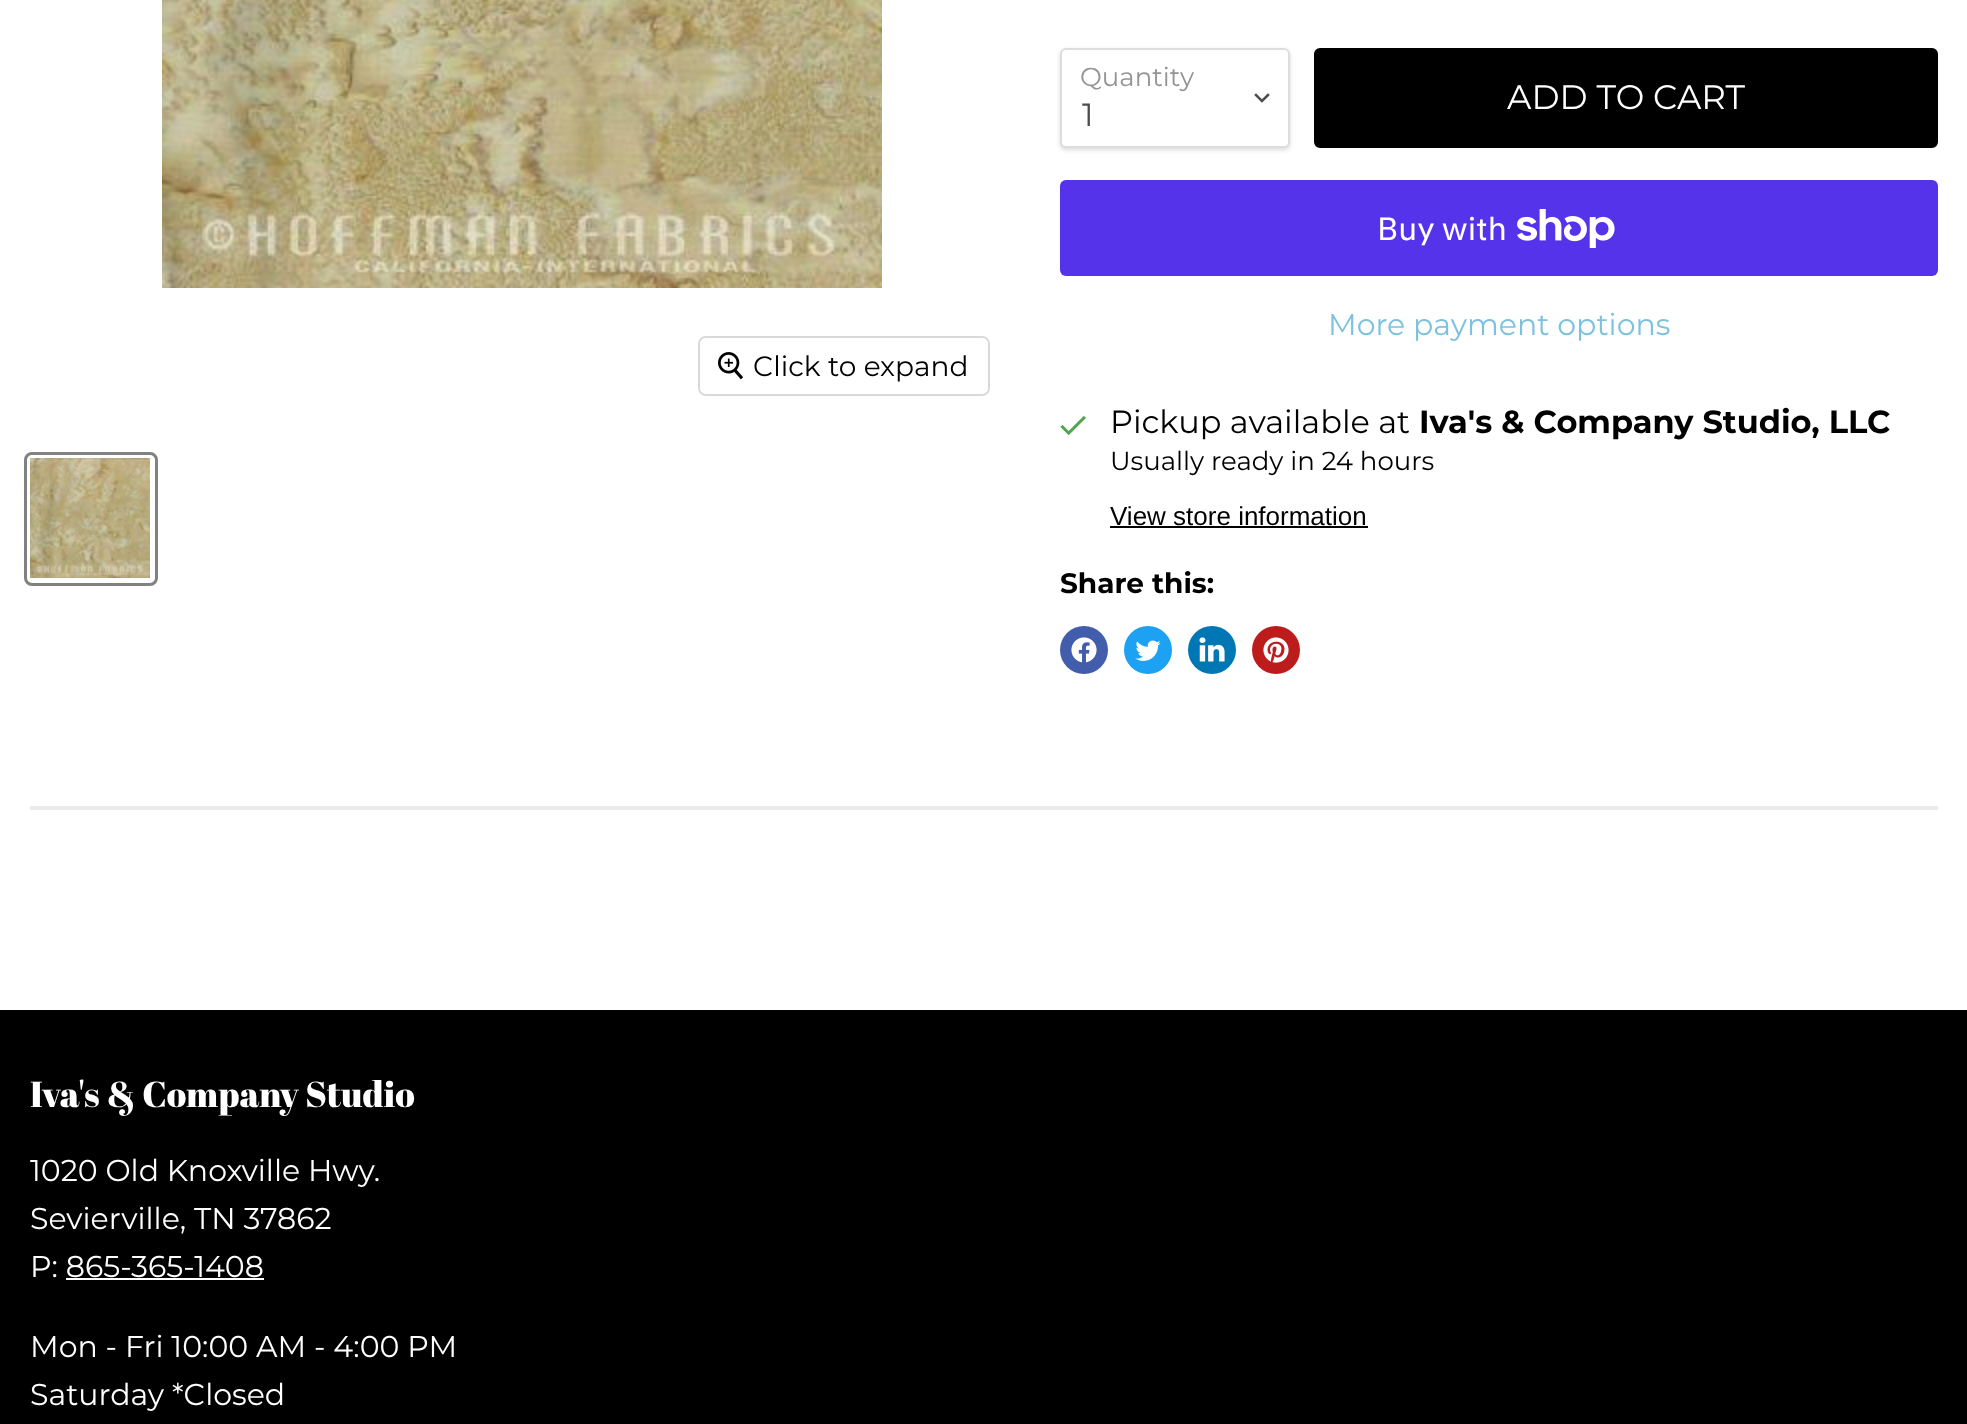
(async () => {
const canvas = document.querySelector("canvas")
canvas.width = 1967
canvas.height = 1424
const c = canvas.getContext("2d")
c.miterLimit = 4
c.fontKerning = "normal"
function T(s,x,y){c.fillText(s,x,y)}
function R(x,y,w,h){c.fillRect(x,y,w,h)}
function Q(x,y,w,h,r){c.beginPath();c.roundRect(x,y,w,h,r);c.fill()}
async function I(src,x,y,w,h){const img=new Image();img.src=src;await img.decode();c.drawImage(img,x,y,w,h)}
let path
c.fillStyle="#fff"
R(0,0,1967,1424)
await I("1.png",162,0,720,288)
c.beginPath()
c.roundRect(699,337,290,58,7)
c.strokeStyle="#d9d9d9"
c.lineWidth=2
c.stroke()
c.fillStyle="#ffffffe6"
Q(700,338,288,56,6)
await I("2.png",718,352,26,28)
c.font="100 28px Montserrat"
c.fillStyle="#000"
T("Click to expand",753,376)
c.beginPath()
c.roundRect(25.5,453.5,131,131,6.5)
c.strokeStyle="#818181"
c.lineWidth=3
c.stroke()
await I("3.png",30,458,120,120)
c.fillStyle="#00000026"
c.filter="blur(2px)"
c.beginPath()
c.roundRect(1060,50,230,100,6)
c.fill()
c.filter="none"
c.fillStyle="#fff"
c.beginPath()
c.roundRect(1061,49,228,98,5)
c.fill()
c.strokeStyle="#ddd"
c.lineWidth=2
c.stroke()
c.font="100 26px Montserrat"
c.fillStyle="#949494"
T("Quantity",1080,86)
path = new Path2D("M1262 101l6-6m-6 6l-6-6")
c.strokeStyle="#4d4d4d"
c.lineWidth=2.5
c.lineCap="square"
c.stroke(path)
c.font="100 32px Montserrat"
c.fillStyle="#4d4d4d"
T("1",1082,126)
c.fillStyle="#000"
c.beginPath()
c.roundRect(1315,49,622,98,5)
c.fill()
c.strokeStyle="#000"
c.lineWidth=2
c.stroke()
c.font="100 34px Montserrat"
c.fillStyle="#fff"
T("ADD TO CART",1507,109)
c.fillStyle="#5433eb"
Q(1060,180,878,96,6)
c.font="32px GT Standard"
c.fillStyle="#fff"
T("Buy with",1377,240)
await I("4.png",1517,209,98,39)
c.font="100 30px Montserrat"
c.fillStyle="#7cc2df"
T("More payment options",1328,335)
await I("5.png",1060,415,26,21)
c.font="100 32px Montserrat"
c.fillStyle="#000"
T("Pickup available at",1110,433)
c.font="100 32px 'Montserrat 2'"
T("Iva's & Company Studio, LLC",1419,433)
c.font="100 26px Montserrat"
T("Usually ready in 24 hours",1110,470)
c.font="26px Liberation Sans"
T("View store information",1110,525)
R(1110,526,258,2)
c.font="100 28px 'Montserrat 2'"
T("Share this:",1060,593)
c.fillStyle="#425dab"
c.beginPath()
c.arc(1084,650,24,0,7)
c.fill()
await I("6.png",1071,637,26,26)
c.fillStyle="#1da1f2"
c.beginPath()
c.arc(1148,650,24,0,7)
c.fill()
await I("7.png",1135,640,26,21)
c.fillStyle="#0077b5"
c.beginPath()
c.arc(1212,650,24,0,7)
c.fill()
await I("8.png",1199,637,26,25)
c.fillStyle="#bd1c1c"
c.beginPath()
c.arc(1276,650,24,0,7)
c.fill()
await I("9.png",1263,637,26,26)
c.fillStyle="#ebebeb"
R(30,806,1908,4)
c.fillStyle="#000"
R(0,1010,1967,414)
c.font="36px Abril Fatface"
c.fillStyle="#fff"
T("Iva's & Company Studio",30,1107)
c.font="100 30px Montserrat"
T("1020 Old Knoxville Hwy.",30,1181)
T("Sevierville, TN 37862",30,1229)
T("P: 865-365-1408",30,1277)
R(66,1278,198,2)
T("Mon - Fri 10:00 AM - 4:00 PM",30,1357)
T("Saturday *Closed",30,1405)
})()
